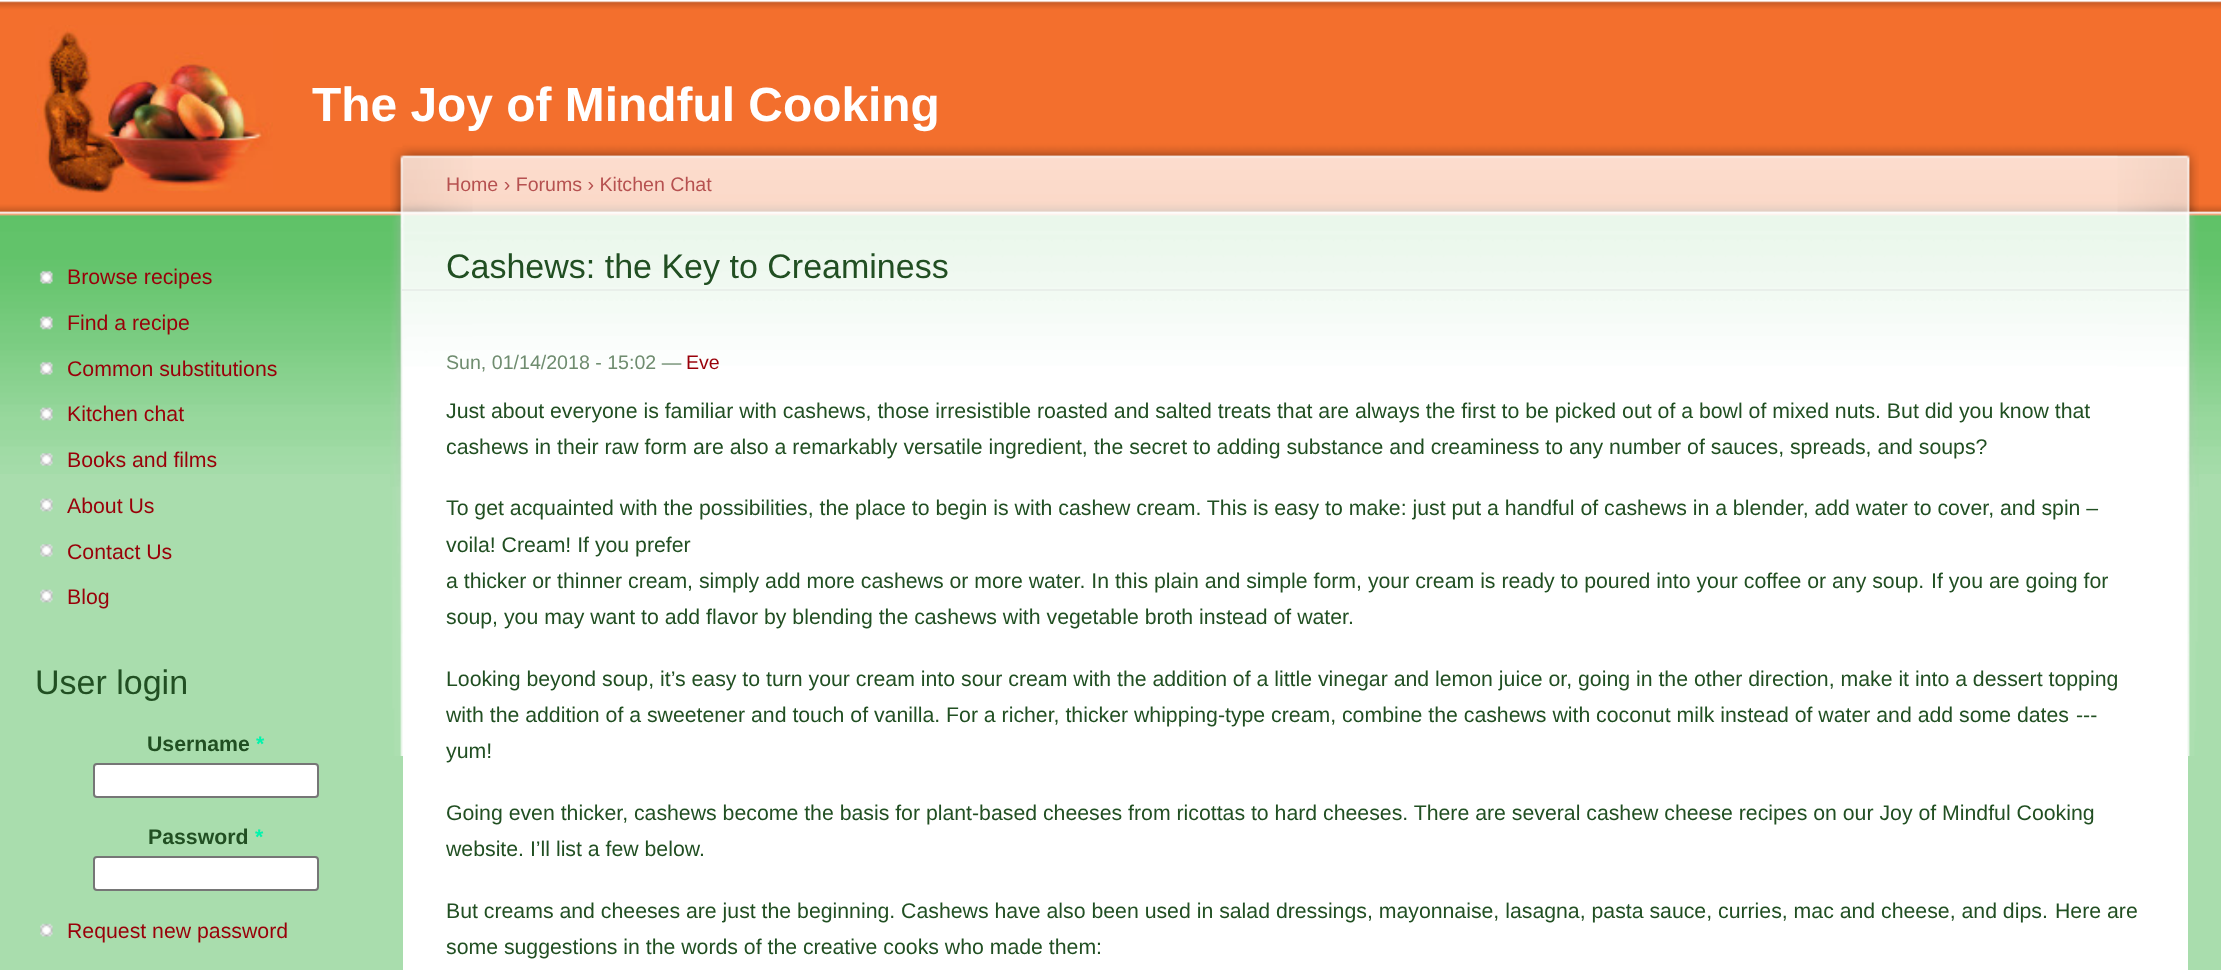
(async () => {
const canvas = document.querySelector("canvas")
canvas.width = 2221
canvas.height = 970
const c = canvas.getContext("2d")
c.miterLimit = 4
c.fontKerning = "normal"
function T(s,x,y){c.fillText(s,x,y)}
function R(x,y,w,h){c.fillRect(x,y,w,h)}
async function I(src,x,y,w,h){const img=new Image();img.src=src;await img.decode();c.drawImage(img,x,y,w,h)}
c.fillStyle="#a9ddad"
R(0,0,2221,970)
await I("1.png",0,0,2221,474)
await I("2.png",35,25,238,168)
c.font="bold 47.9px Liberation Sans"
c.fillStyle="#fff"
T("The Joy of Mindful Cooking",312,121)
await I("3.png",39,270,14,14)
c.font="21.28px Liberation Sans"
c.fillStyle="#990009"
T("Browse recipes",67,284)
await I("4.png",39,316,14,14)
T("Find a recipe",67,330)
await I("5.png",39,361,14,14)
T("Common substitutions",67,376)
await I("6.png",39,407,14,14)
T("Kitchen chat",67,421)
await I("7.png",40,453,13,13)
T("Books and films",67,467)
await I("8.png",40,498,13,14)
T("About Us",67,513)
await I("9.png",40,544,13,13)
T("Contact Us",67,559)
await I("8.png",40,589,13,14)
T("Blog",67,604)
c.font="34px Liberation Sans"
c.fillStyle="#214f22"
T("User login",35,694)
c.font="bold 21.28px Liberation Sans"
T("Username",147,751)
c.fillStyle="#00f4ac"
T("*",256,751)
c.fillStyle="#fff"
c.beginPath()
c.roundRect(94,764,224,33,3)
c.fill()
c.strokeStyle="#767676"
c.lineWidth=2
c.stroke()
c.fillStyle="#214f22"
T("Password",148,844)
c.fillStyle="#00f4ac"
T("*",255,844)
c.fillStyle="#fff"
c.beginPath()
c.roundRect(94,857,224,33,3)
c.fill()
c.stroke()
await I("10.png",40,923,13,14)
c.font="21.28px Liberation Sans"
c.fillStyle="#990009"
T("Request new password",67,938)
c.fillStyle="#fff"
R(403,490,1785,480)
await I("11.png",402,140,1716,350)
await I("12.png",2117,140,82,616)
await I("13.png",390,147,83,609)
c.font="19.6px Liberation Sans"
c.fillStyle="#b65150"
T("Home › Forums › Kitchen Chat",446,191)
c.fillStyle="#e9efea"
R(401,289,1788,2)
c.font="34px Liberation Sans"
c.fillStyle="#214f22"
T("Cashews: the Key to Creaminess",446,278)
c.font="19.6px Liberation Sans"
c.fillStyle="#6f8c6f"
T("Sun, 01/14/2018 - 15:02 —",446,369)
c.fillStyle="#990009"
T("Eve",686,369)
c.font="21.28px Liberation Sans"
c.fillStyle="#214f22"
T("Just about everyone is familiar with cashews, those irresistible roasted and salted treats that are always the first to be picked out of a bowl of mixed nuts. But did you know that",446,418)
T("cashews in their raw form are also a remarkably versatile ingredient, the secret to adding substance and creaminess to any number of sauces, spreads, and soups?",446,454)
T("To get acquainted with the possibilities, the place to begin is with cashew cream. This is easy to make: just put a handful of cashews in a blender, add water to cover, and spin –",446,515)
T("voila! Cream! If you prefer",446,552)
T("a thicker or thinner cream, simply add more cashews or more water. In this plain and simple form, your cream is ready to poured into your coffee or any soup.",446,588)
T("If you are going for",1931,588)
T("soup, you may want to add flavor by blending the cashews with vegetable broth instead of water.",446,624)
T("Looking beyond soup, it’s easy to turn your cream into sour cream with the addition of a little vinegar and lemon juice or, going in the other direction, make it into a dessert topping",446,686)
T("with the addition of a sweetener and touch of vanilla. For a richer, thicker whipping-type cream, combine the cashews with coconut milk instead of water and add some dates",446,722)
T("---",2076,722)
T("yum!",446,758)
T("Going even thicker, cashews become the basis for plant-based cheeses from ricottas to hard cheeses. There are several cashew cheese recipes on our Joy of Mindful Cooking",446,820)
T("website. I’ll list a few below.",446,856)
T("But creams and cheeses are just the beginning. Cashews have also been used in salad dressings, mayonnaise, lasagna, pasta sauce, curries, mac and cheese, and dips.",446,918)
T("Here are",2055,918)
T("some suggestions in the words of the creative cooks who made them:",446,954)
})()
